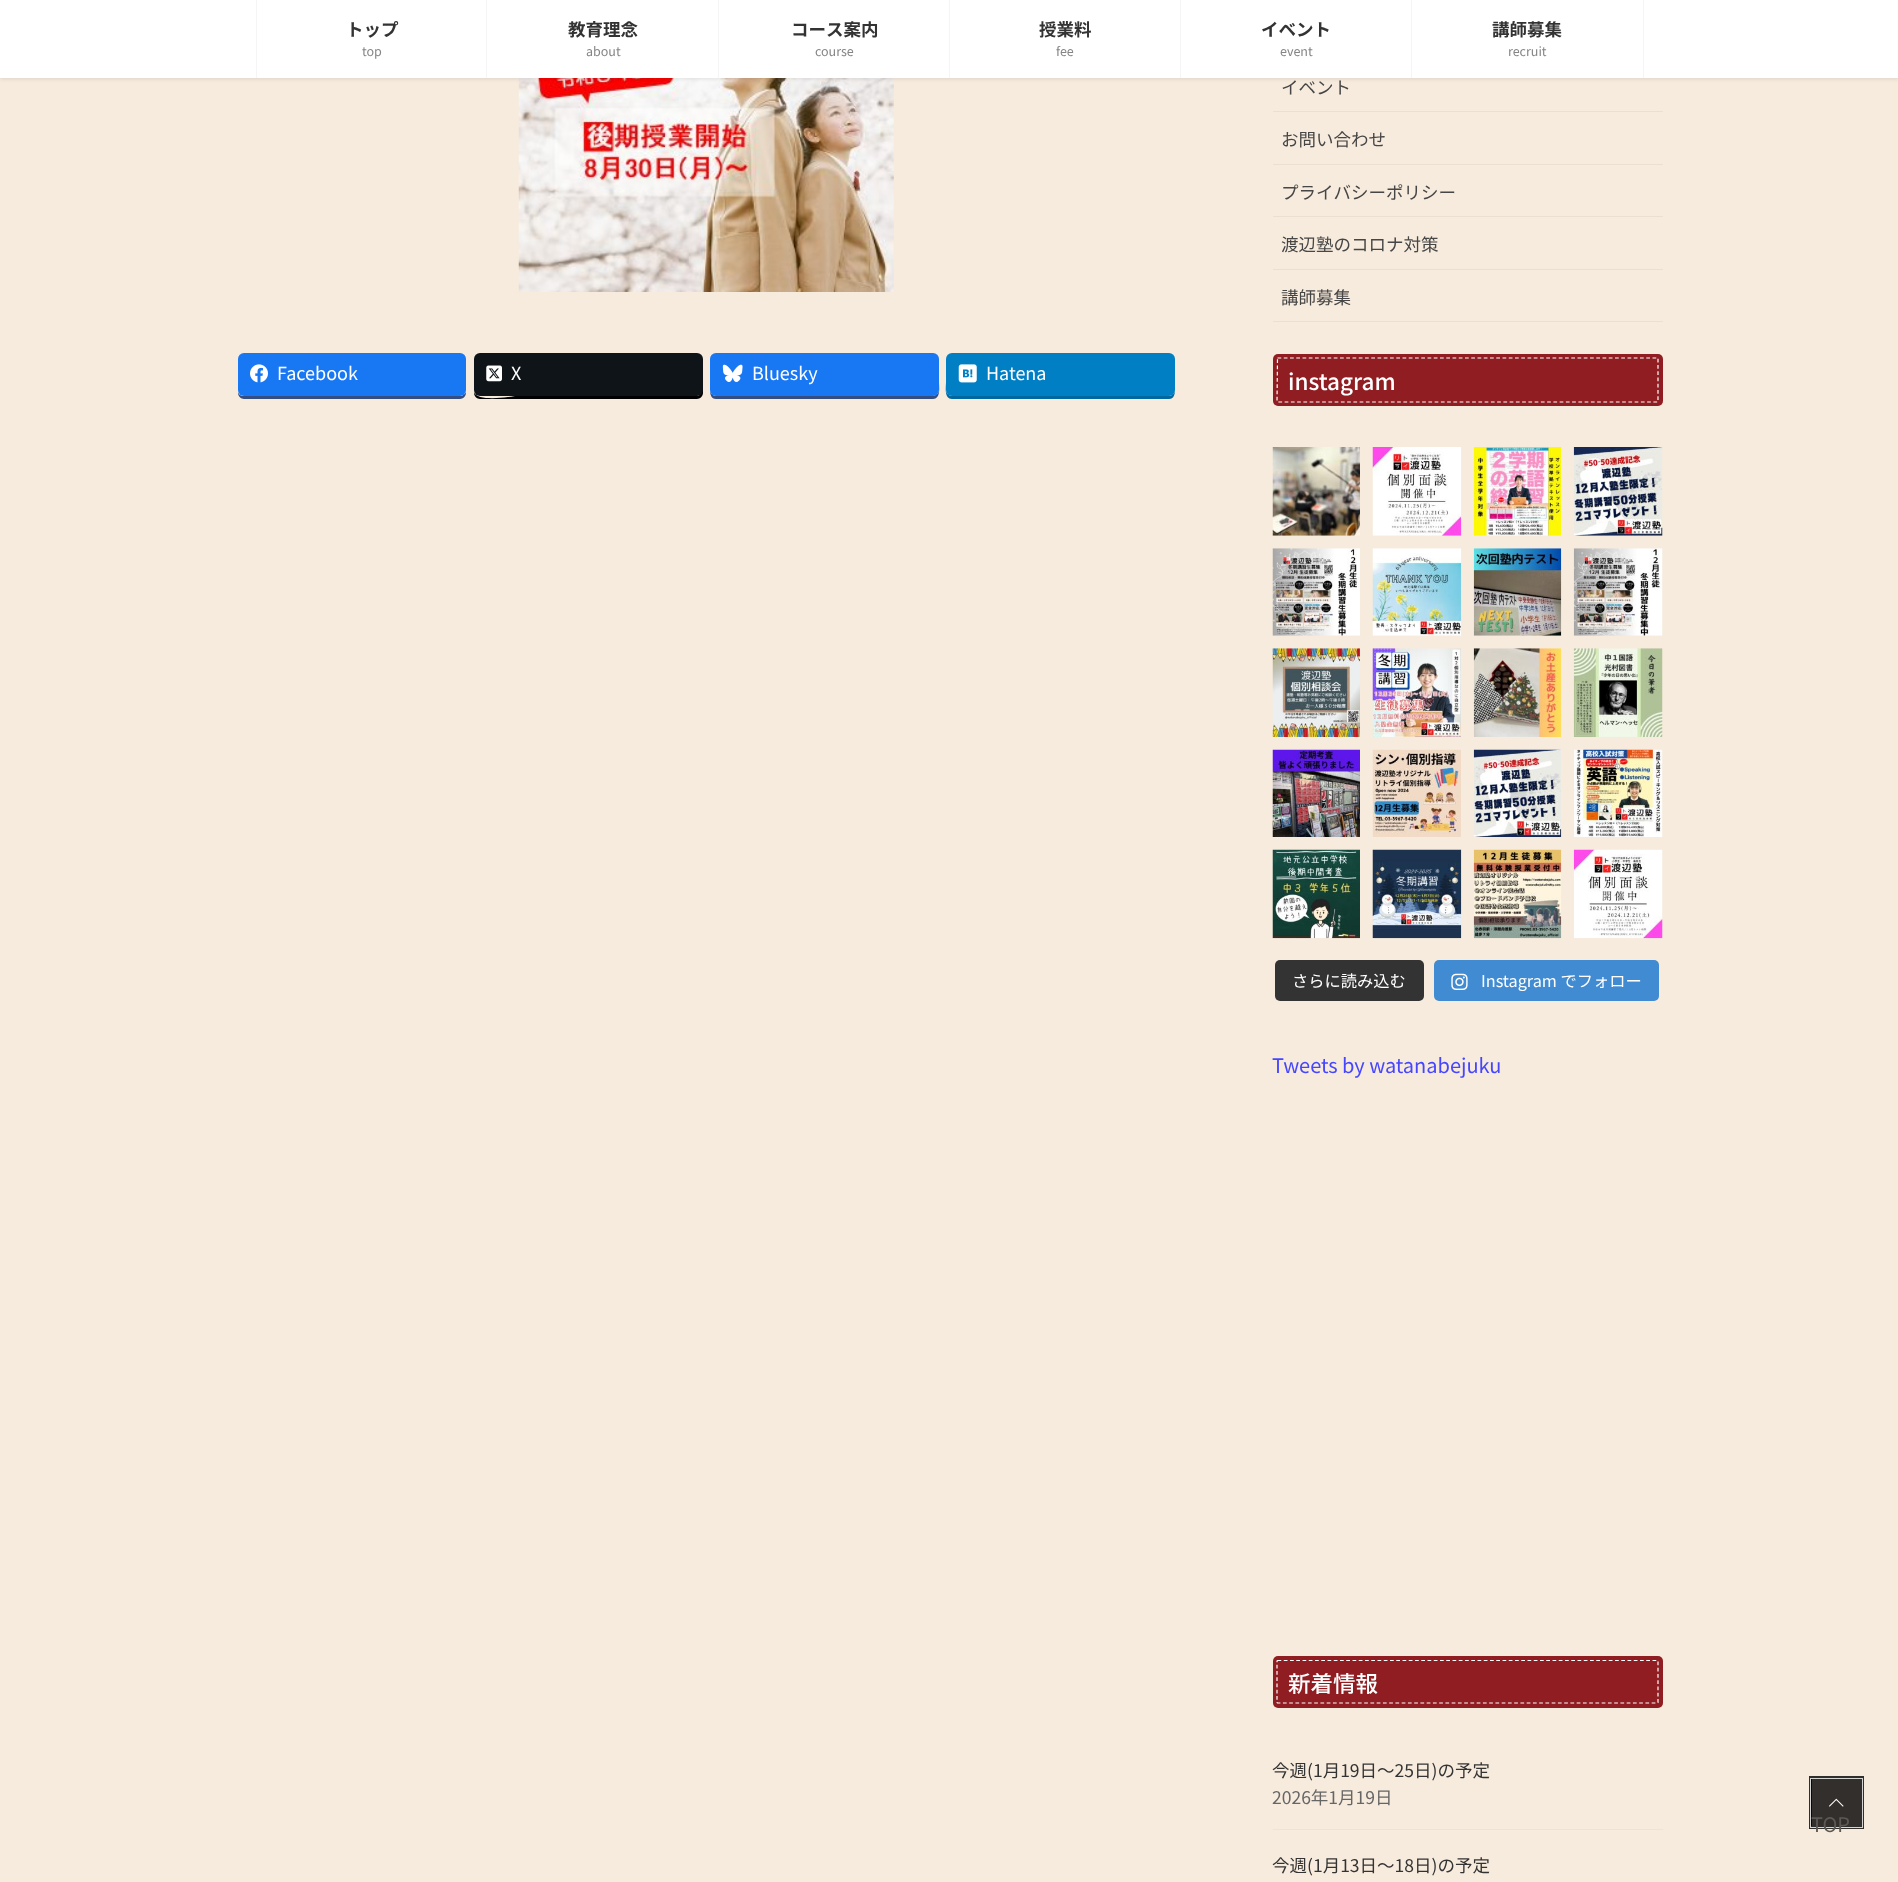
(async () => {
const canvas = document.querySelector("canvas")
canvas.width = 1898
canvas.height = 1882
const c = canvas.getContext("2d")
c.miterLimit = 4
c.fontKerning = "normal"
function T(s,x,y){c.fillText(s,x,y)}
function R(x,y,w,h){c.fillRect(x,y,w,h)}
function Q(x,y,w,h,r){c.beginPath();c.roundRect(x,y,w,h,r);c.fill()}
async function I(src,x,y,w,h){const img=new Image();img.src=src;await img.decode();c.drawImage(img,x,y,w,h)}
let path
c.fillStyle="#f7ebdd"
R(0,0,1898,1882)
await I("1.png",518,78,376,214)
c.fillStyle="#0000001a"
c.filter="blur(2px)"
c.beginPath()
c.rect(0,1,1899,78)
c.fill()
c.filter="none"
c.fillStyle="#fff"
R(0,0,1898,78)
c.fillStyle="#f5f5f5"
R(256,0,1,78)
c.font="bold 17.5px Noto Sans JP"
c.fillStyle="#333"
T("トップ",346,36)
c.font="12.5px Noto Sans JP"
c.fillStyle="#858585"
T("top",362,56)
c.fillStyle="#f5f5f5"
R(486,0,1,78)
c.font="bold 17.5px Noto Sans JP"
c.fillStyle="#333"
T("教育理念",568,36)
c.font="12.5px Noto Sans JP"
c.fillStyle="#858585"
T("about",586,56)
c.fillStyle="#f5f5f5"
R(718,0,1,78)
c.font="bold 17.5px Noto Sans JP"
c.fillStyle="#333"
T("コース案内",791,36)
c.font="12.5px Noto Sans JP"
c.fillStyle="#858585"
T("course",815,56)
c.fillStyle="#f5f5f5"
R(949,0,1,78)
c.font="bold 17.5px Noto Sans JP"
c.fillStyle="#333"
T("授業料",1039,36)
c.font="12.5px Noto Sans JP"
c.fillStyle="#858585"
T("fee",1056,56)
c.fillStyle="#f5f5f5"
R(1180,0,1,78)
c.font="bold 17.5px Noto Sans JP"
c.fillStyle="#333"
T("イベント",1261,36)
c.font="12.5px Noto Sans JP"
c.fillStyle="#858585"
T("event",1280,56)
c.fillStyle="#f5f5f5"
R(1643,0,1,78)
R(1411,0,1,78)
c.font="bold 17.5px Noto Sans JP"
c.fillStyle="#333"
T("講師募集",1492,36)
c.font="12.5px Noto Sans JP"
c.fillStyle="#858585"
T("recruit",1508,56)
c.fillStyle="#344e84"
path = new Path2D("M238 392v1c0 3 3 6 6 6h216c3 0 6-3 6-6v-1c-1 2-3 4-6 4h-216c-3 0-5-1-6-4z")
c.fill(path)
c.fillStyle="#1877f2"
Q(238,353,228,43,6)
await I("2.png",250,364,18,19)
c.font="18px Noto Sans JP"
c.fillStyle="#fff"
T("Facebook",277,380)
c.fillStyle="#000"
path = new Path2D("M474 392v1c0 3 3 6 6 6h217c3 0 6-3 6-6v-32l-1-2v26c0 4 1 11-6 11h-180c-1 0-39 7-42-4z")
c.fill(path)
c.fillStyle="#0f1419"
Q(474,353,229,43,6)
await I("3.png",486,365,16,17)
c.fillStyle="#fff"
T("X",511,380)
c.fillStyle="#344e84"
path = new Path2D("M710 390c0 4 1 9 6 9h217c8 0 6-12 6-17v-23v31c0 3-3 6-7 6h-216c-3 0-6-3-6-6z")
c.fill(path)
c.fillStyle="#1877f2"
Q(710,353,229,43,6)
await I("4.png",722,364,21,18)
c.fillStyle="#fff"
T("Bluesky",752,380)
c.fillStyle="#00679f"
path = new Path2D("M946 359v23c0 5-2 17 6 17h217c5 0 6-5 6-9c0 3-3 6-6 6h-217c-3 0-6-3-6-6z")
c.fill(path)
c.fillStyle="#007fc5"
Q(946,353,229,43,6)
await I("5.png",958,364,19,19)
c.fillStyle="#fff"
T("Hatena",986,380)
c.fillStyle="#ebdfd2"
R(1273,111,390,1)
c.font="17.5px Noto Sans JP"
c.fillStyle="#464646"
T("イベント",1281,94)
c.fillStyle="#ebdfd2"
R(1273,164,390,1)
c.fillStyle="#464646"
T("お問い合わせ",1281,146)
c.fillStyle="#ebdfd2"
R(1273,216,390,1)
c.fillStyle="#464646"
T("プライバシーポリシー",1281,199)
c.fillStyle="#ebdfd2"
R(1273,269,390,1)
c.fillStyle="#464646"
T("渡辺塾のコロナ対策",1281,251)
c.fillStyle="#ebdfd2"
R(1273,321,390,1)
c.fillStyle="#464646"
T("講師募集",1281,304)
c.fillStyle="#8f1d22"
Q(1273,354,390,52,5)
path = new Path2D("M1277.5 358h380.5v43l-.5 1h-380l-.5-1z")
c.strokeStyle="#fff"
c.lineWidth=1.2
c.setLineDash([3.75,2.5])
c.stroke(path)
c.font="500 22.5px Noto Sans JP"
c.fillStyle="#fff"
T("instagram",1288,390)
await I("6.png",1272,447,88,89)
await I("7.png",1372,447,90,89)
await I("8.png",1473,447,89,89)
await I("9.png",1573,447,90,89)
await I("10.png",1272,548,88,88)
await I("11.png",1372,548,90,88)
await I("12.png",1473,548,89,88)
await I("13.png",1573,548,90,88)
await I("14.png",1272,648,88,89)
await I("15.png",1372,648,89,89)
await I("16.png",1473,648,89,89)
await I("17.png",1573,648,90,89)
await I("18.png",1272,749,88,88)
await I("19.png",1372,749,89,88)
await I("20.png",1473,749,89,88)
await I("21.png",1574,749,89,88)
await I("22.png",1272,849,88,90)
await I("23.png",1372,849,90,90)
await I("24.png",1473,849,89,90)
await I("25.png",1573,849,90,90)
c.fillStyle="#333"
Q(1275,960,149,41,5)
c.font="16.25px Noto Sans JP"
c.fillStyle="#fff"
T("さらに読み込む",1292,987)
c.fillStyle="#408bd1"
Q(1434,960,225,41,5)
await I("26.png",1451,973,17,17)
c.fillStyle="#fff"
T("Instagram でフォロー",1481,987)
c.font="20px Noto Sans JP"
c.fillStyle="#4646ff"
T("Tweets by watanabejuku",1272,1073)
c.fillStyle="#8f1d22"
Q(1273,1656,390,52,5)
path = new Path2D("M1277.5 1660.5h380l.5 .5v41.5l-.5 .5h-380l-.5-.5v-41.5z")
c.stroke(path)
c.font="500 22.5px Noto Sans JP"
c.fillStyle="#fff"
T("新着情報",1288,1692)
c.fillStyle="#e5e5e5"
R(1273,1829,390,1)
c.font="17.5px Noto Sans JP"
c.fillStyle="#333"
T("今週(1月19日～25日)の予定",1272,1777)
c.fillStyle="#666"
T("2026年1月19日",1272,1804)
c.fillStyle="#333"
T("今週(1月13日～18日)の予定",1272,1872)
c.strokeStyle="#312f2c"
c.lineWidth=3
c.setLineDash([])
c.strokeRect(1810.5,1777.5,52,50)
c.strokeStyle="#d6d5d5"
c.lineWidth=1
c.strokeRect(1810.5,1778.5,52,49)
c.fillStyle="#000000cc"
R(1811,1779,50,47)
await I("27.png",1829,1798,15,9)
c.font="20px Noto Sans JP"
c.fillStyle="#5c5853"
T("TOP",1811,1832)
})()
